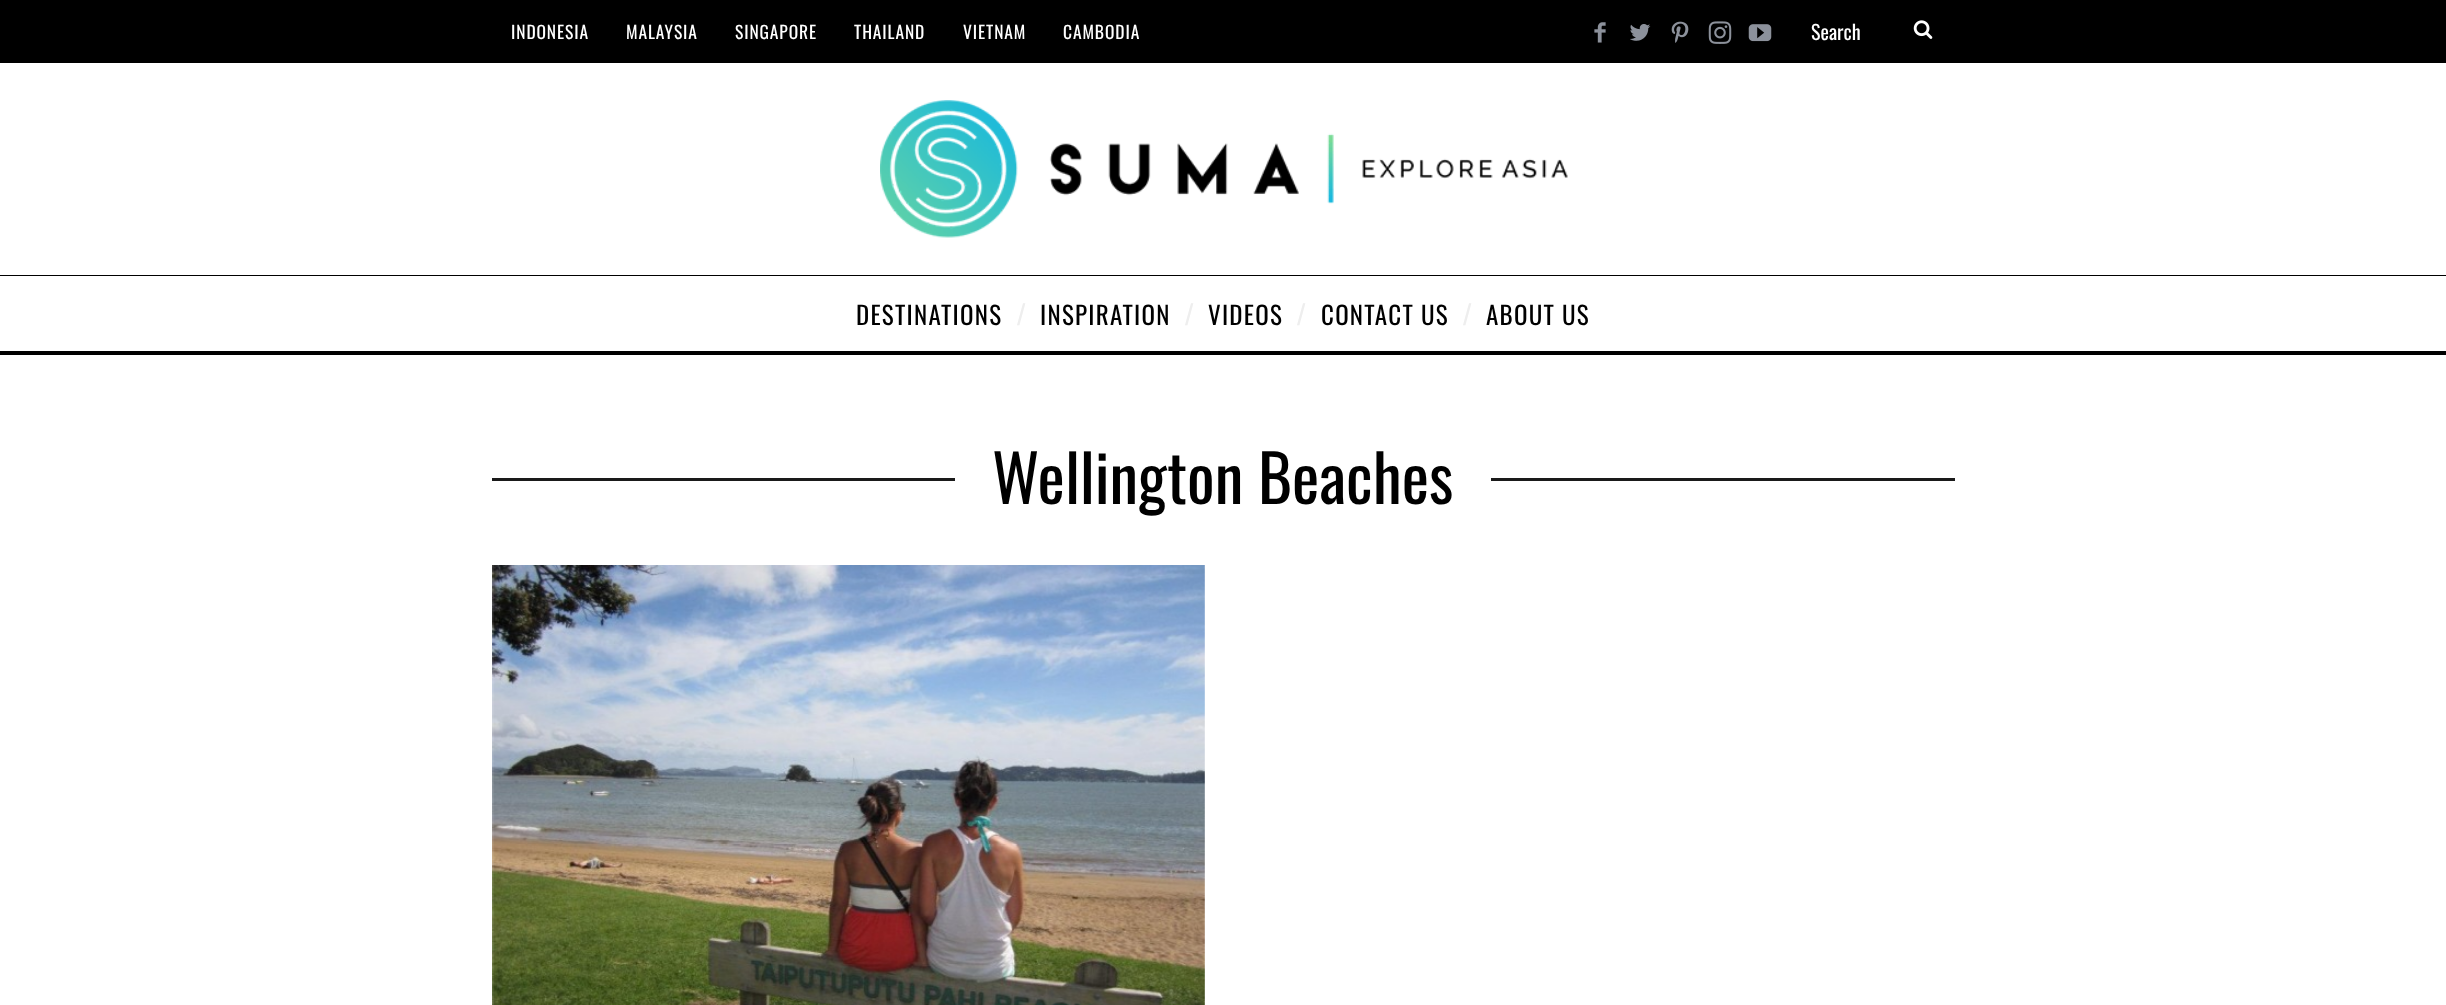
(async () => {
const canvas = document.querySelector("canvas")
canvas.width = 2446
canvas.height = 1005
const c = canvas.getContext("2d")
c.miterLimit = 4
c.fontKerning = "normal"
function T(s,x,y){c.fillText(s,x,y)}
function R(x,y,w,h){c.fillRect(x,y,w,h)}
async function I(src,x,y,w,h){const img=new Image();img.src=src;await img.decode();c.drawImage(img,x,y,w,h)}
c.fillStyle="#fff"
R(0,0,2446,1005)
c.fillStyle="#000"
R(0,0,2446,63)
c.letterSpacing="0.9px"
c.font="17.5px Oswald"
c.fillStyle="#fff"
T("INDONESIA",511,39)
T("MALAYSIA",626,39)
T("SINGAPORE",735,39)
T("THAILAND",854,39)
T("VIETNAM",963,39)
T("CAMBODIA",1063,39)
await I("1.png",1594,22,12,21)
await I("2.png",1630,24,21,17)
await I("3.png",1671,21,18,22)
await I("4.png",1708,21,24,23)
await I("5.png",1748,24,24,18)
c.letterSpacing="0px"
c.font="20px Oswald"
T("Search",1811,40)
await I("6.png",1913,20,20,19)
await I("7.png",880,100,688,138)
c.fillStyle="#000"
R(0,275,2446,1)
R(0,351,2446,4)
c.letterSpacing="1.25px"
c.font="25px Oswald"
T("DESTINATIONS",856,325)
c.font="30px Liberation Sans"
c.fillStyle="#eee"
T("/",1017,325)
c.font="25px Oswald"
c.fillStyle="#000"
T("INSPIRATION",1040,325)
c.font="30px Liberation Sans"
c.fillStyle="#eee"
T("/",1185,325)
c.font="25px Oswald"
c.fillStyle="#000"
T("VIDEOS",1208,325)
c.font="30px Liberation Sans"
c.fillStyle="#eee"
T("/",1297,325)
c.font="25px Oswald"
c.fillStyle="#000"
T("CONTACT US",1321,325)
c.font="30px Liberation Sans"
c.fillStyle="#eee"
T("/",1463,325)
c.font="25px Oswald"
c.fillStyle="#000"
T("ABOUT US",1486,325)
c.fillStyle="#1a1a1a"
R(492,478,1463,3)
c.fillStyle="#fff"
R(955,478,536,3)
c.letterSpacing="0px"
c.font="65px Oswald"
c.fillStyle="#000"
T("Wellington Beaches",992,504)
await I("8.png",492,565,713,440)
})()
